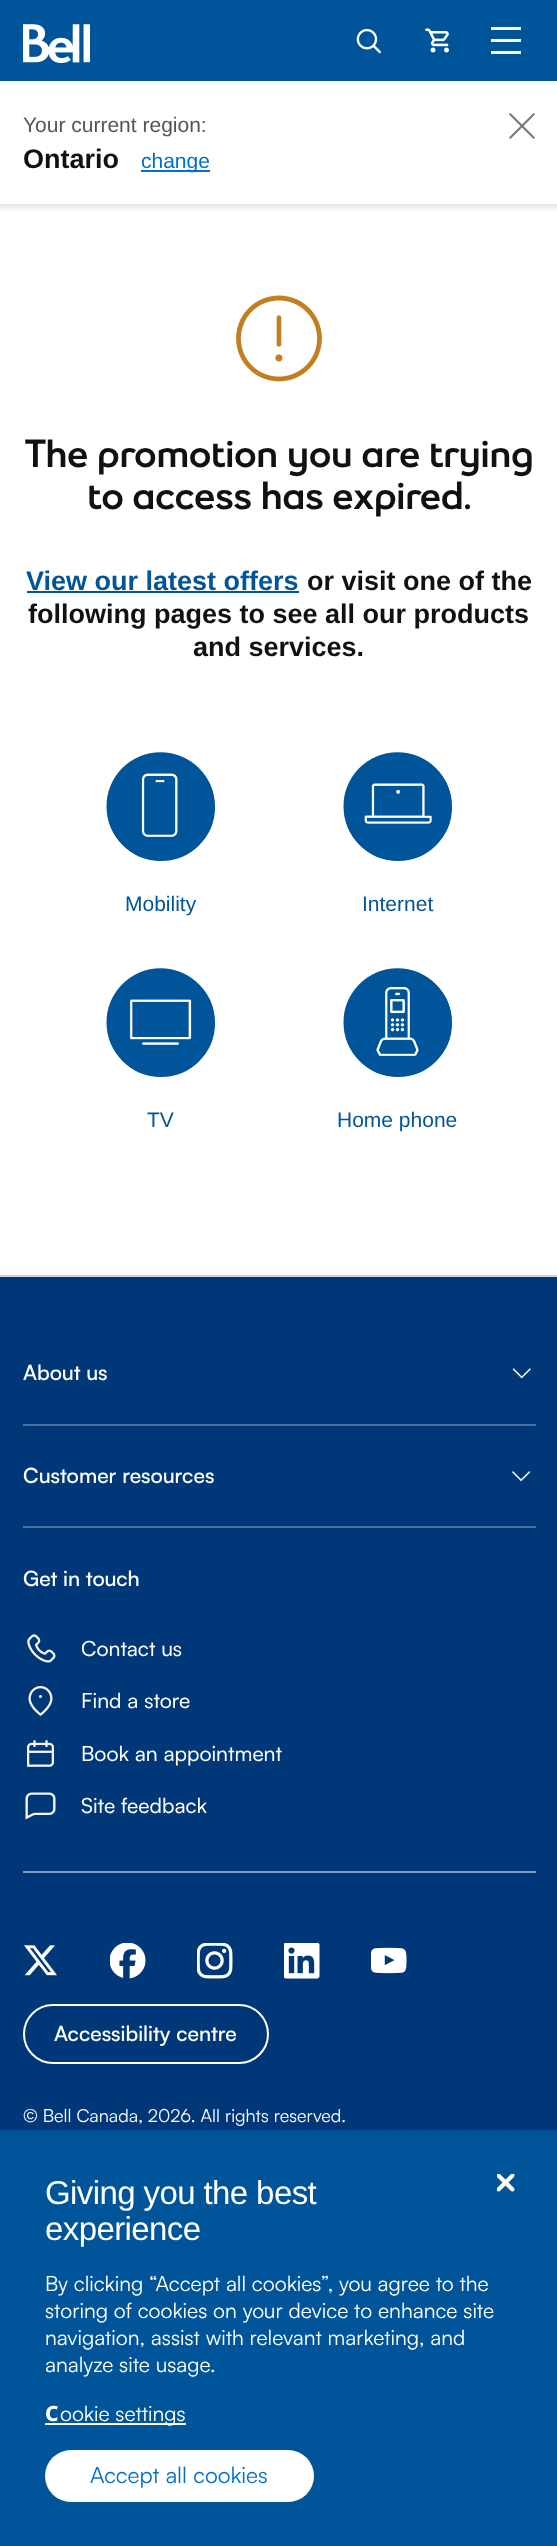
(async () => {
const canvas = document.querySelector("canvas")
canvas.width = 557
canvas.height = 2546
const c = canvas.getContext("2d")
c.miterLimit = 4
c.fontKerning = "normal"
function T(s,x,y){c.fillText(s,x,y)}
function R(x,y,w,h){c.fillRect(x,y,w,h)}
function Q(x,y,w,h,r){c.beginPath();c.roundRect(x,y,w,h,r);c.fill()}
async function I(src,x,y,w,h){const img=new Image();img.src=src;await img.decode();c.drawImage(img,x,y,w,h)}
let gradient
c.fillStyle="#003778"
R(0,0,557,2546)
c.fillStyle="#00549a"
R(0,0,557,81)
await I("1.png",23,24,67,39)
await I("2.png",356,29,26,25)
await I("3.png",425,28,24,25)
c.fillStyle="#fff"
R(491,27,30,3)
R(491,39,30,3)
R(491,51,30,3)
R(0,81,557,123)
c.font="21px Liberation Sans"
c.fillStyle="#555"
T("Your current region:",23,132)
c.font="bold 27px Liberation Sans"
c.fillStyle="#111"
T("Ontario",23,168)
c.fillStyle="#0070ce"
R(141,170,69,2)
c.font="21px Liberation Sans"
T("change",141,168)
await I("4.png",509,113,26,26)
gradient = c.createLinearGradient(279,204,279,212)
gradient.addColorStop(0,"#e6e6e6")
gradient.addColorStop(1,"#fff")
c.fillStyle = gradient
R(0,204,557,8)
c.fillStyle="#fff"
R(0,212,557,1063)
await I("5.png",236,295,86,87)
c.letterSpacing="-0.6px"
c.font="900 39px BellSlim"
c.fillStyle="#111"
T("The promotion you are trying",25,467)
T("to access has expired.",87,509)
c.letterSpacing="0px"
c.font="bold 27px Liberation Sans"
c.fillStyle="#00549a"
T("View our latest offers",26,590)
R(27,591,272,2)
c.fillStyle="#111"
T("or visit one of the",307,590)
T("following pages to see all our products",28,623)
T("and services.",193,656)
c.beginPath()
c.arc(161,807,52.5,0,7)
c.strokeStyle="#00549a"
c.lineWidth=3
c.stroke()
await I("6.png",106,752,109,109)
c.font="21px Liberation Sans"
c.fillStyle="#00549a"
T("Mobility",125,911)
c.beginPath()
c.arc(398,807,52.5,0,7)
c.stroke()
await I("7.png",343,752,109,109)
T("Internet",362,911)
c.beginPath()
c.arc(161,1023,52.5,0,7)
c.stroke()
await I("8.png",106,968,109,109)
T("TV",147,1127)
c.beginPath()
c.arc(398,1023,52.5,0,7)
c.stroke()
await I("9.png",343,968,109,109)
T("Home phone",337,1127)
c.fillStyle="#d4d4d4"
R(0,1275,557,2)
c.font="500 21px Satoshi"
c.fillStyle="#fff"
T("About us",23,1380)
await I("10.png",512,1368,19,11)
c.fillStyle="#4d73a1"
R(23,1424,513,2)
c.fillStyle="#fff"
T("Customer resources",23,1483)
await I("11.png",512,1471,18,11)
c.fillStyle="#4d73a1"
R(23,1526,513,2)
c.fillStyle="#809bbc"
R(23,1871,513,2)
c.fillStyle="#fff"
T("Get in touch",23,1586)
await I("12.png",27,1634,29,29)
c.font="21px 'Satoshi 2'"
T("Contact us",81,1656)
await I("13.png",28,1686,25,30)
T("Find a store",81,1708)
await I("14.png",27,1740,27,27)
T("Book an appointment",81,1761)
await I("15.png",25,1792,31,28)
T("Site feedback",81,1813)
await I("16.png",24,1945,33,31)
await I("17.png",110,1943,36,36)
await I("18.png",197,1943,36,36)
await I("19.png",284,1943,36,36)
await I("20.png",371,1947,36,27)
c.beginPath()
c.roundRect(24,2005,244,58,29)
c.strokeStyle="#fff"
c.lineWidth=2
c.stroke()
c.font="500 21px Satoshi"
T("Accessibility centre",54,2041)
c.font="18px Satoshi"
T("© Bell Canada, 2026. All rights reserved.",23,2122)
c.fillStyle="#00549a"
R(0,2130,557,416)
c.letterSpacing="-0.6px"
c.font="33px Liberation Sans"
c.fillStyle="#fff"
T("Giving you the best",45,2204)
T("experience",45,2240)
c.letterSpacing="0px"
c.font="21px Satoshi"
T("By clicking “Accept all cookies”, you agree to the",45,2291)
T("storing of cookies on your device to enhance site",45,2318)
T("navigation, assist with relevant marketing, and",45,2345)
T("analyze site usage.",45,2372)
c.font="800 21px Noto Sans"
T("C",45,2421)
R(45,2423,141,2)
c.font="21px Satoshi"
T("ookie settings",60,2421)
Q(45,2450,269,52,26)
c.font="22.5px Satoshi"
c.fillStyle="#0070ce"
T("Accept all cookies",90,2483)
await I("21.png",497,2175,16,17)
await I("22.png",497,2174,18,18)
})()
